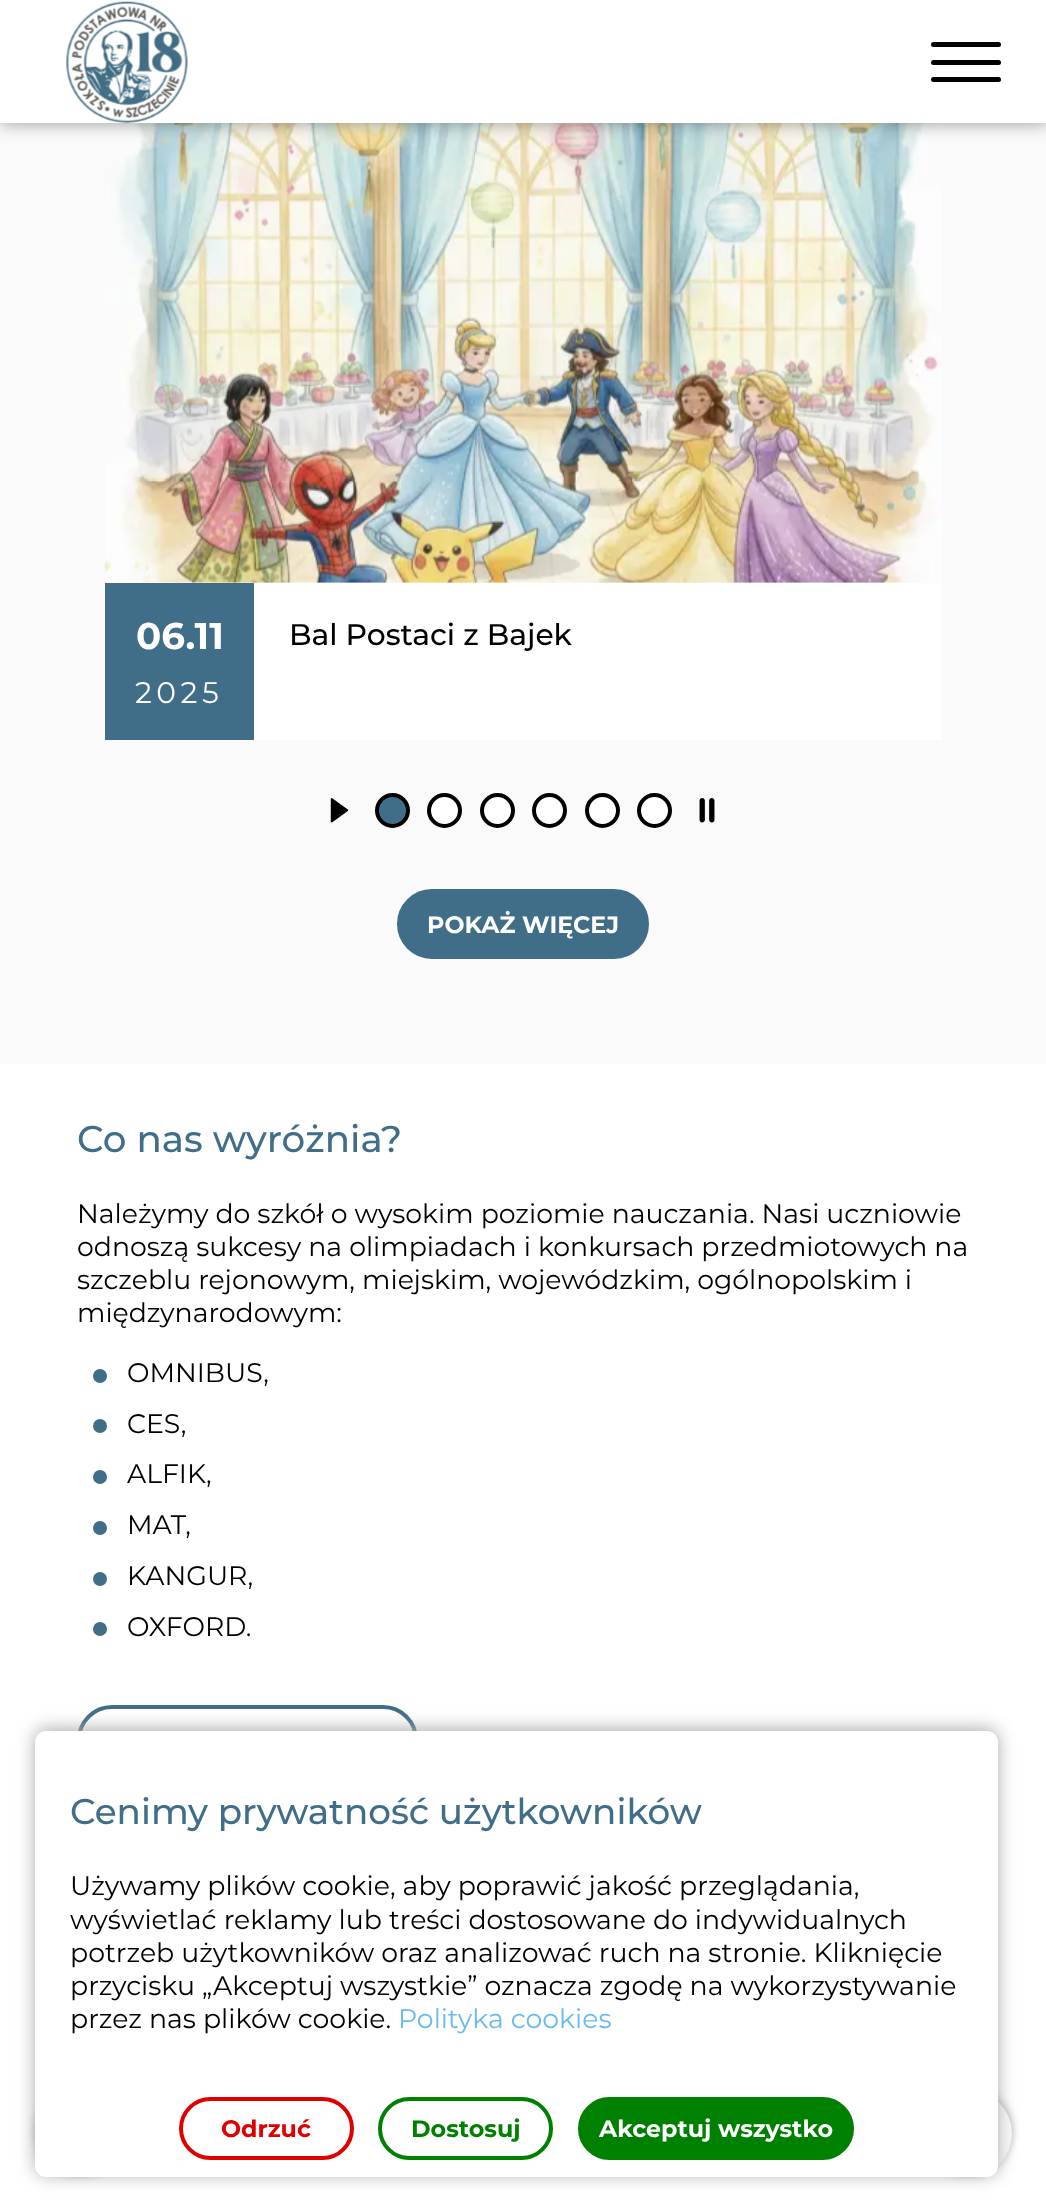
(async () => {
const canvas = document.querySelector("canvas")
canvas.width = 1046
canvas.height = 2212
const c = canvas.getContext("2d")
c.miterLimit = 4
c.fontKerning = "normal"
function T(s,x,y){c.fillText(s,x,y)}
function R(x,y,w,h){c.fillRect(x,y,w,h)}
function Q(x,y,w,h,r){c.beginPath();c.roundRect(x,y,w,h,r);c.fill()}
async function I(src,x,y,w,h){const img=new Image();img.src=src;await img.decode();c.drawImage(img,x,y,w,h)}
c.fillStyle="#fff"
R(0,0,1046,2212)
c.fillStyle="#fafafa"
R(0,123,1046,941)
await I("2.png",105,123,837,460)
c.fillStyle="#00000066"
c.filter="blur(9px)"
c.beginPath()
c.rect(0,-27,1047,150)
c.fill()
c.filter="none"
c.fillStyle="#fff"
R(0,0,1046,123)
await I("1.png",66,1,122,122)
c.fillStyle="#000"
Q(931,42,70,5,2.5)
Q(931,60,70,5,2.5)
Q(931,77,70,5,2.5)
c.fillStyle="#fff"
R(254,583,688,157)
c.fillStyle="#406d88"
R(105,583,149,157)
c.font="bold 37.25px Montserrat"
c.fillStyle="#fff"
T("06.11",136,649)
c.letterSpacing="4.5px"
c.font="29.75px Montserrat"
T("2025",135,703)
c.letterSpacing="0px"
c.font="500 29.75px Montserrat"
c.fillStyle="#000"
T("Bal Postaci z Bajek",289,645)
await I("3.png",330,798,19,25)
c.fillStyle="#406d88"
c.beginPath()
c.arc(392.5,810.5,15.5,0,7)
c.fill()
c.strokeStyle="#000"
c.lineWidth=4
c.stroke()
c.fillStyle="#fff"
c.beginPath()
c.arc(444.5,810.5,15.5,0,7)
c.fill()
c.stroke()
c.beginPath()
c.arc(497.5,810.5,15.5,0,7)
c.fill()
c.stroke()
c.beginPath()
c.arc(549.5,810.5,15.5,0,7)
c.fill()
c.stroke()
c.beginPath()
c.arc(602.5,810.5,15.5,0,7)
c.fill()
c.stroke()
c.beginPath()
c.arc(654.5,810.5,15.5,0,7)
c.fill()
c.stroke()
await I("4.png",699,798,16,25)
c.fillStyle="#406d88"
c.beginPath()
c.roundRect(399,891,248,66,33)
c.fill()
c.strokeStyle="#406d88"
c.stroke()
c.font="bold 23.75px Montserrat"
c.fillStyle="#fff"
T("POKAŻ WIĘCEJ",427,933)
c.font="500 37.25px Montserrat"
c.fillStyle="#406d88"
T("Co nas wyróżnia?",77,1152)
c.font="26.75px Montserrat"
c.fillStyle="#000"
T("Należymy do szkół o wysokim poziomie nauczania. Nasi uczniowie",77,1223)
T("odnoszą sukcesy na olimpiadach i konkursach przedmiotowych na",77,1256)
T("szczeblu rejonowym, miejskim, wojewódzkim, ogólnopolskim i",77,1289)
T("międzynarodowym:",77,1322)
c.fillStyle="#406d88"
c.beginPath()
c.arc(100,1376,7,0,7)
c.fill()
c.fillStyle="#000"
T("OMNIBUS,",127,1382)
c.fillStyle="#406d88"
c.beginPath()
c.arc(100,1426,7,0,7)
c.fill()
c.fillStyle="#000"
T("CES,",127,1433)
c.fillStyle="#406d88"
c.beginPath()
c.arc(100,1477,7,0,7)
c.fill()
c.fillStyle="#000"
T("ALFIK,",127,1483)
c.fillStyle="#406d88"
c.beginPath()
c.arc(100,1528,7,0,7)
c.fill()
c.fillStyle="#000"
T("MAT,",127,1534)
c.fillStyle="#406d88"
c.beginPath()
c.arc(100,1579,7,0,7)
c.fill()
c.fillStyle="#000"
T("KANGUR,",127,1585)
c.fillStyle="#406d88"
c.beginPath()
c.arc(100,1629,7,0,7)
c.fill()
c.fillStyle="#000"
T("OXFORD.",127,1636)
c.beginPath()
c.roundRect(79,1707,337,66,33)
c.stroke()
c.fillStyle="#acabab"
c.filter="blur(4.5px)"
c.beginPath()
c.roundRect(924,2088,88,87,43.5)
c.fill()
c.filter="none"
c.fillStyle="#fafafa"
Q(924,2090,88,87,43.5)
c.fillStyle="#acabab"
c.filter="blur(9px)"
c.beginPath()
c.roundRect(35,1729,963,446,11)
c.fill()
c.filter="none"
c.filter="blur(4.5px)"
c.beginPath()
c.roundRect(35,2088,88,87,43.5)
c.fill()
c.filter="none"
c.fillStyle="#fff"
Q(35,1731,963,446,11)
c.font="500 35.75px Montserrat"
c.fillStyle="#406d88"
T("Cenimy prywatność użytkowników",70,1824)
c.font="26.75px Montserrat"
c.fillStyle="#000"
T("Używamy plików cookie, aby poprawić jakość przeglądania,",70,1895)
T("wyświetlać reklamy lub treści dostosowane do indywidualnych",70,1929)
T("potrzeb użytkowników oraz analizować ruch na stronie. Kliknięcie",70,1962)
T("przycisku „Akceptuj wszystkie” oznacza zgodę na wykorzystywanie",70,1995)
T("przez nas plików cookie.",70,2028)
c.fillStyle="#68bbee"
T("Polityka cookies",398,2028)
c.beginPath()
c.roundRect(181,2099,171,59,29.5)
c.strokeStyle="#df0000"
c.stroke()
c.font="bold 23.75px Montserrat"
c.fillStyle="#df0000"
T("Odrzuć",221,2137)
c.beginPath()
c.roundRect(380,2099,171,59,29.5)
c.strokeStyle="#008000"
c.stroke()
c.fillStyle="#008000"
T("Dostosuj",411,2137)
c.beginPath()
c.roundRect(580,2099,272,59,29.5)
c.fill()
c.stroke()
c.fillStyle="#fff"
T("Akceptuj wszystko",599,2137)
})()
